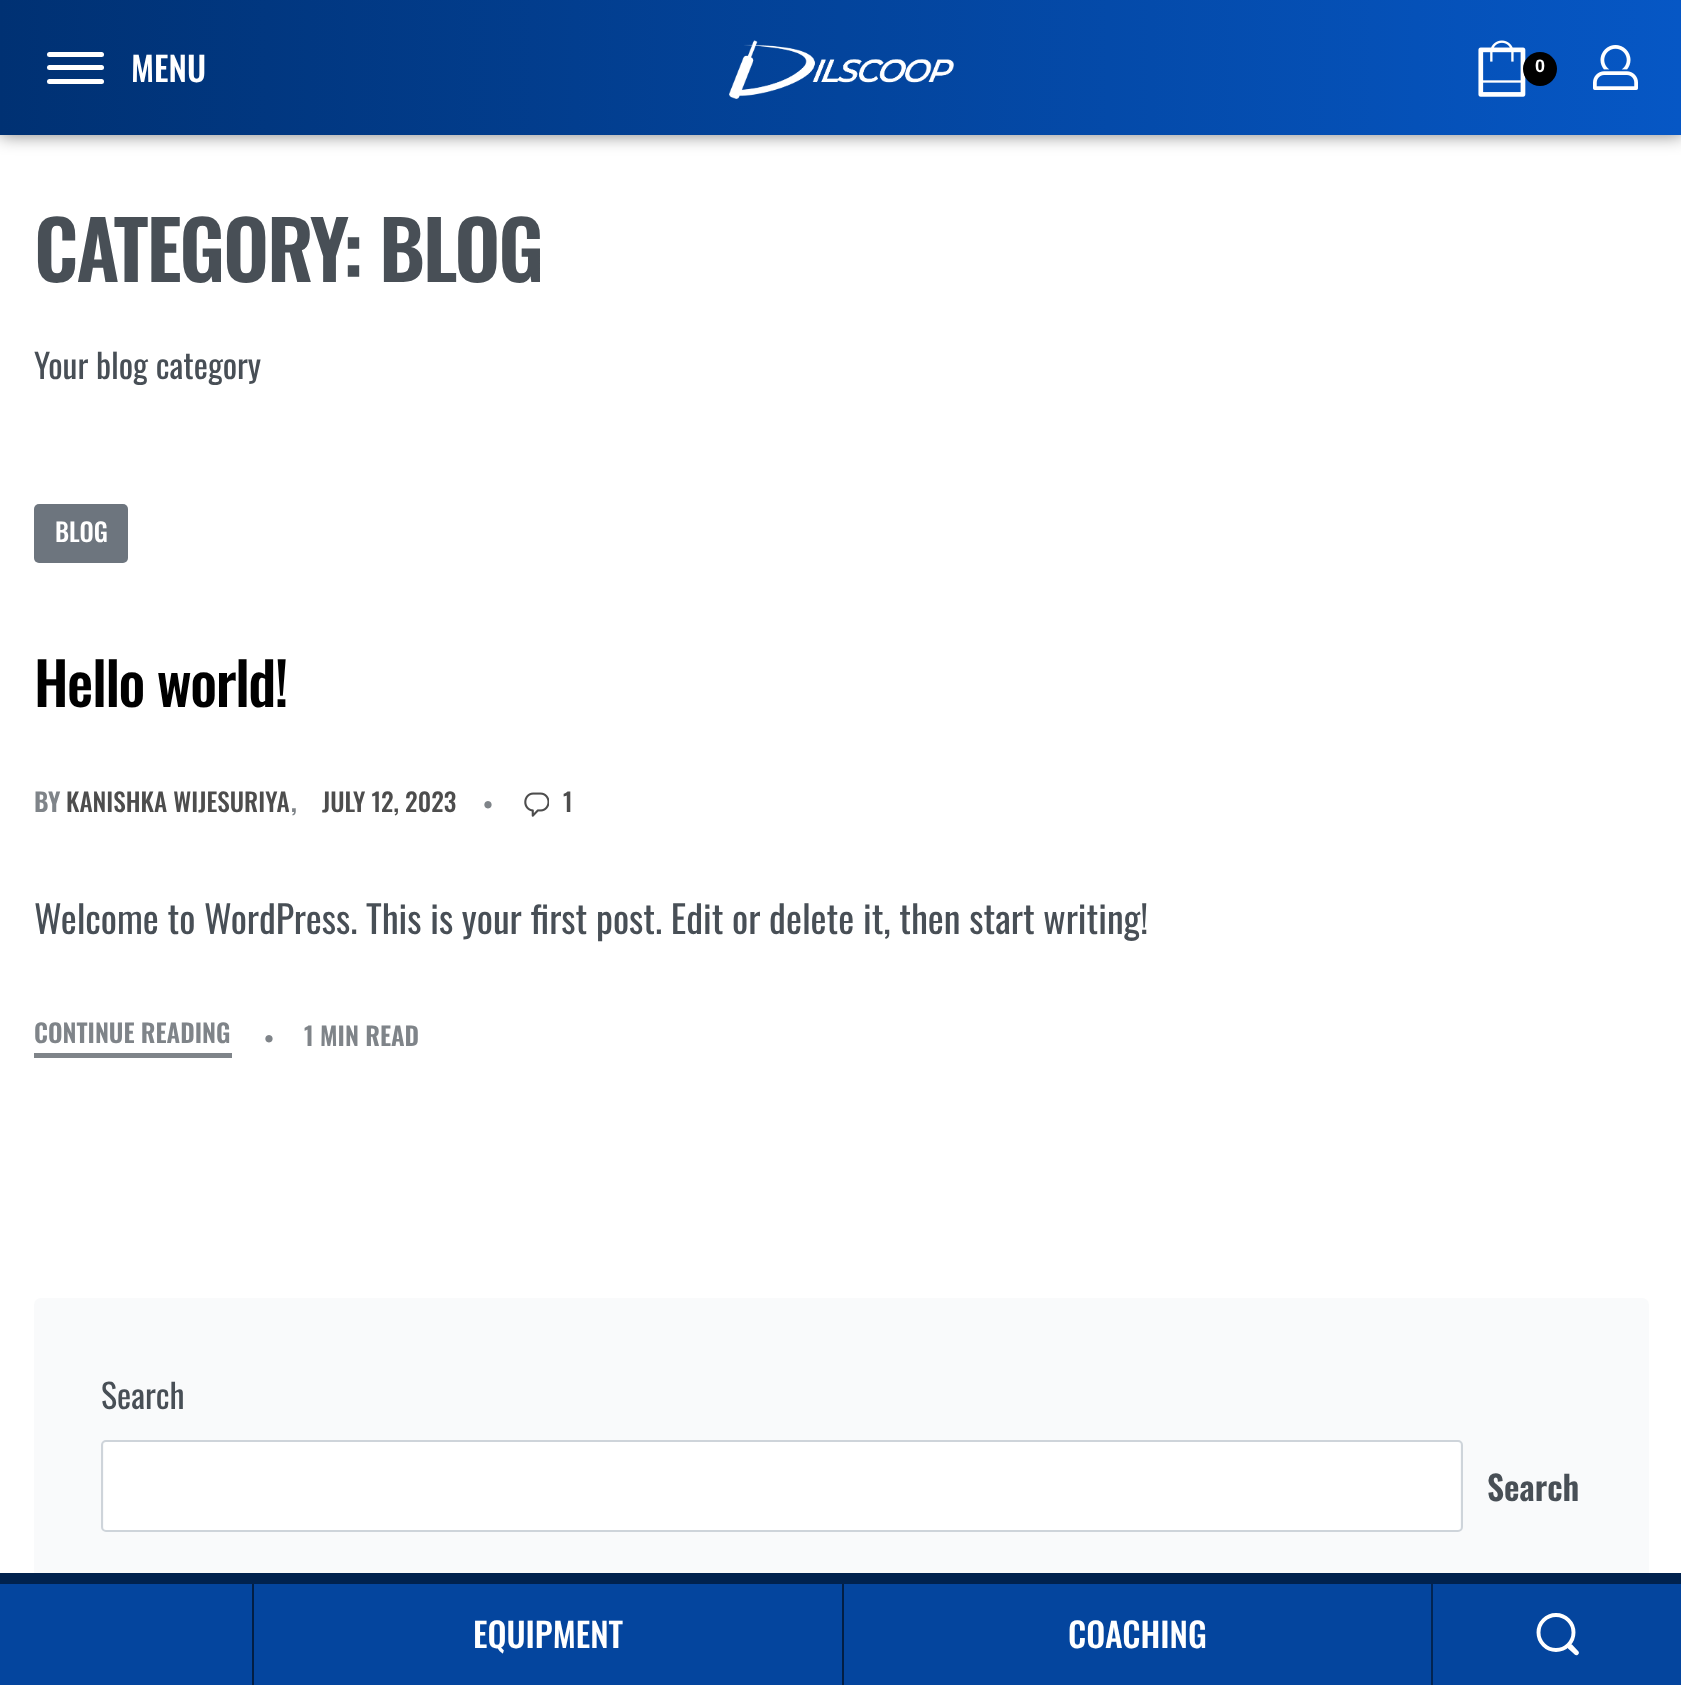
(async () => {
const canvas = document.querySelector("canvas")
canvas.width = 1681
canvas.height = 1685
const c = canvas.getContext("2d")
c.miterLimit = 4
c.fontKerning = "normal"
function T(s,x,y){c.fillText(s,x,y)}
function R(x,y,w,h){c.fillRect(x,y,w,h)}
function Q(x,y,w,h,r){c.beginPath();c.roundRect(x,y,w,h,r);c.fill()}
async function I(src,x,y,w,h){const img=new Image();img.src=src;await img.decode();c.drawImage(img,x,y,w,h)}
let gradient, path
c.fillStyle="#fff"
R(0,0,1681,1685)
c.fillStyle="#00000080"
c.filter="blur(9px)"
c.beginPath()
c.rect(0,0,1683,135)
c.fill()
c.filter="none"
gradient = c.createLinearGradient(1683,67,0,68)
gradient.addColorStop(0,"#0657c5")
gradient.addColorStop(1,"#003173")
c.fillStyle = gradient
R(0,0,1681,135)
c.fillStyle="#fff"
Q(47,52,57,5,2.5)
Q(47,65,57,5,2.5)
Q(47,79,57,5,2.5)
c.font="500 33.75px Oswald"
T("MENU",131,82)
await I("1.png",729,40,225,59)
await I("2.png",1478,40,48,57)
c.fillStyle="#000"
c.beginPath()
c.arc(1540,69,17,0,7)
c.fill()
c.font="bold 18px Liberation Sans"
c.fillStyle="#fff"
T("0",1535,72)
await I("3.png",1593,45,45,45)
c.letterSpacing="-2.25px"
c.font="600 80.25px Oswald"
c.fillStyle="#484f56"
T("CATEGORY: BLOG",34,282)
c.letterSpacing="0px"
c.font="33.75px Oswald"
T("Your blog category",34,379)
c.fillStyle="#6d757e"
Q(34,504,94,59,5)
c.font="500 25.25px Oswald"
c.fillStyle="#fff"
T("BLOG",55,542)
c.letterSpacing="-1.5px"
c.font="500 59px Oswald"
c.fillStyle="#000"
T("Hello world!",34,707)
c.letterSpacing="0px"
c.font="600 25.25px Oswald"
c.fillStyle="#7f8489"
T("BY",34,812)
c.font="500 25.25px Oswald"
c.fillStyle="#4d4d4d"
T("KANISHKA WIJESURIYA",66,812)
c.font="600 25.25px Oswald"
c.fillStyle="#7f8489"
T(",",291,812)
c.font="500 25.25px Oswald"
c.fillStyle="#4d4d4d"
T("JULY 12, 2023",322,812)
c.font="600 22px Oswald"
c.fillStyle="#7f8489"
T("•",483,813)
await I("4.png",524,792,25,25)
c.font="500 25.25px Oswald"
c.fillStyle="#4d4d4d"
T("1",563,812)
c.font="38px Oswald"
c.fillStyle="#484f56"
T("Welcome to WordPress. This is your first post. Edit or delete it, then start writing!",34,934)
c.font="600 25.25px Oswald"
c.fillStyle="#7f8489"
T("CONTINUE READING",34,1043)
R(34,1053,198,5)
c.font="600 22px Oswald"
T("•",264,1047)
c.font="600 25.25px Oswald"
T("1 MIN READ",304,1046)
c.fillStyle="#f9fafb"
Q(34,1298,1615,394,7)
c.font="33.75px Oswald"
c.fillStyle="#484f56"
T("Search",101,1409)
c.fillStyle="#fff"
Q(104,1442,1356,88,2)
c.beginPath()
c.roundRect(102,1441,1360,90,4)
c.strokeStyle="#ced4da"
c.lineWidth=2
c.stroke()
c.font="600 33.75px Oswald"
c.fillStyle="#484f56"
T("Search",1487,1501)
c.fillStyle="#01224e"
R(0,1573,1681,11)
c.fillStyle="#04459e"
R(0,1584,252,101)
R(254,1584,588,101)
c.fillStyle="#021e44"
R(252,1584,2,101)
c.font="500 33.75px Oswald"
c.fillStyle="#fff"
T("EQUIPMENT",473,1648)
c.fillStyle="#04459e"
R(844,1584,587,101)
c.fillStyle="#021e44"
R(842,1584,2,101)
c.fillStyle="#fff"
T("COACHING",1068,1648)
c.fillStyle="#04459e"
R(1433,1584,248,101)
c.fillStyle="#022452"
R(1431,1584,2,101)
c.beginPath()
c.arc(1556,1632.5,17.5,0,7)
c.strokeStyle="#fff"
c.lineWidth=3.9
c.stroke()
c.fillStyle="#fff"
path = new Path2D("M1572 1644.5l6.5 7c.5 .5 .5 2 0 2.5c-2 3-4.5 0-6-1.5l-4.5-4c-2-2.5 1.5-6 4-4z")
c.fill(path)
})()
